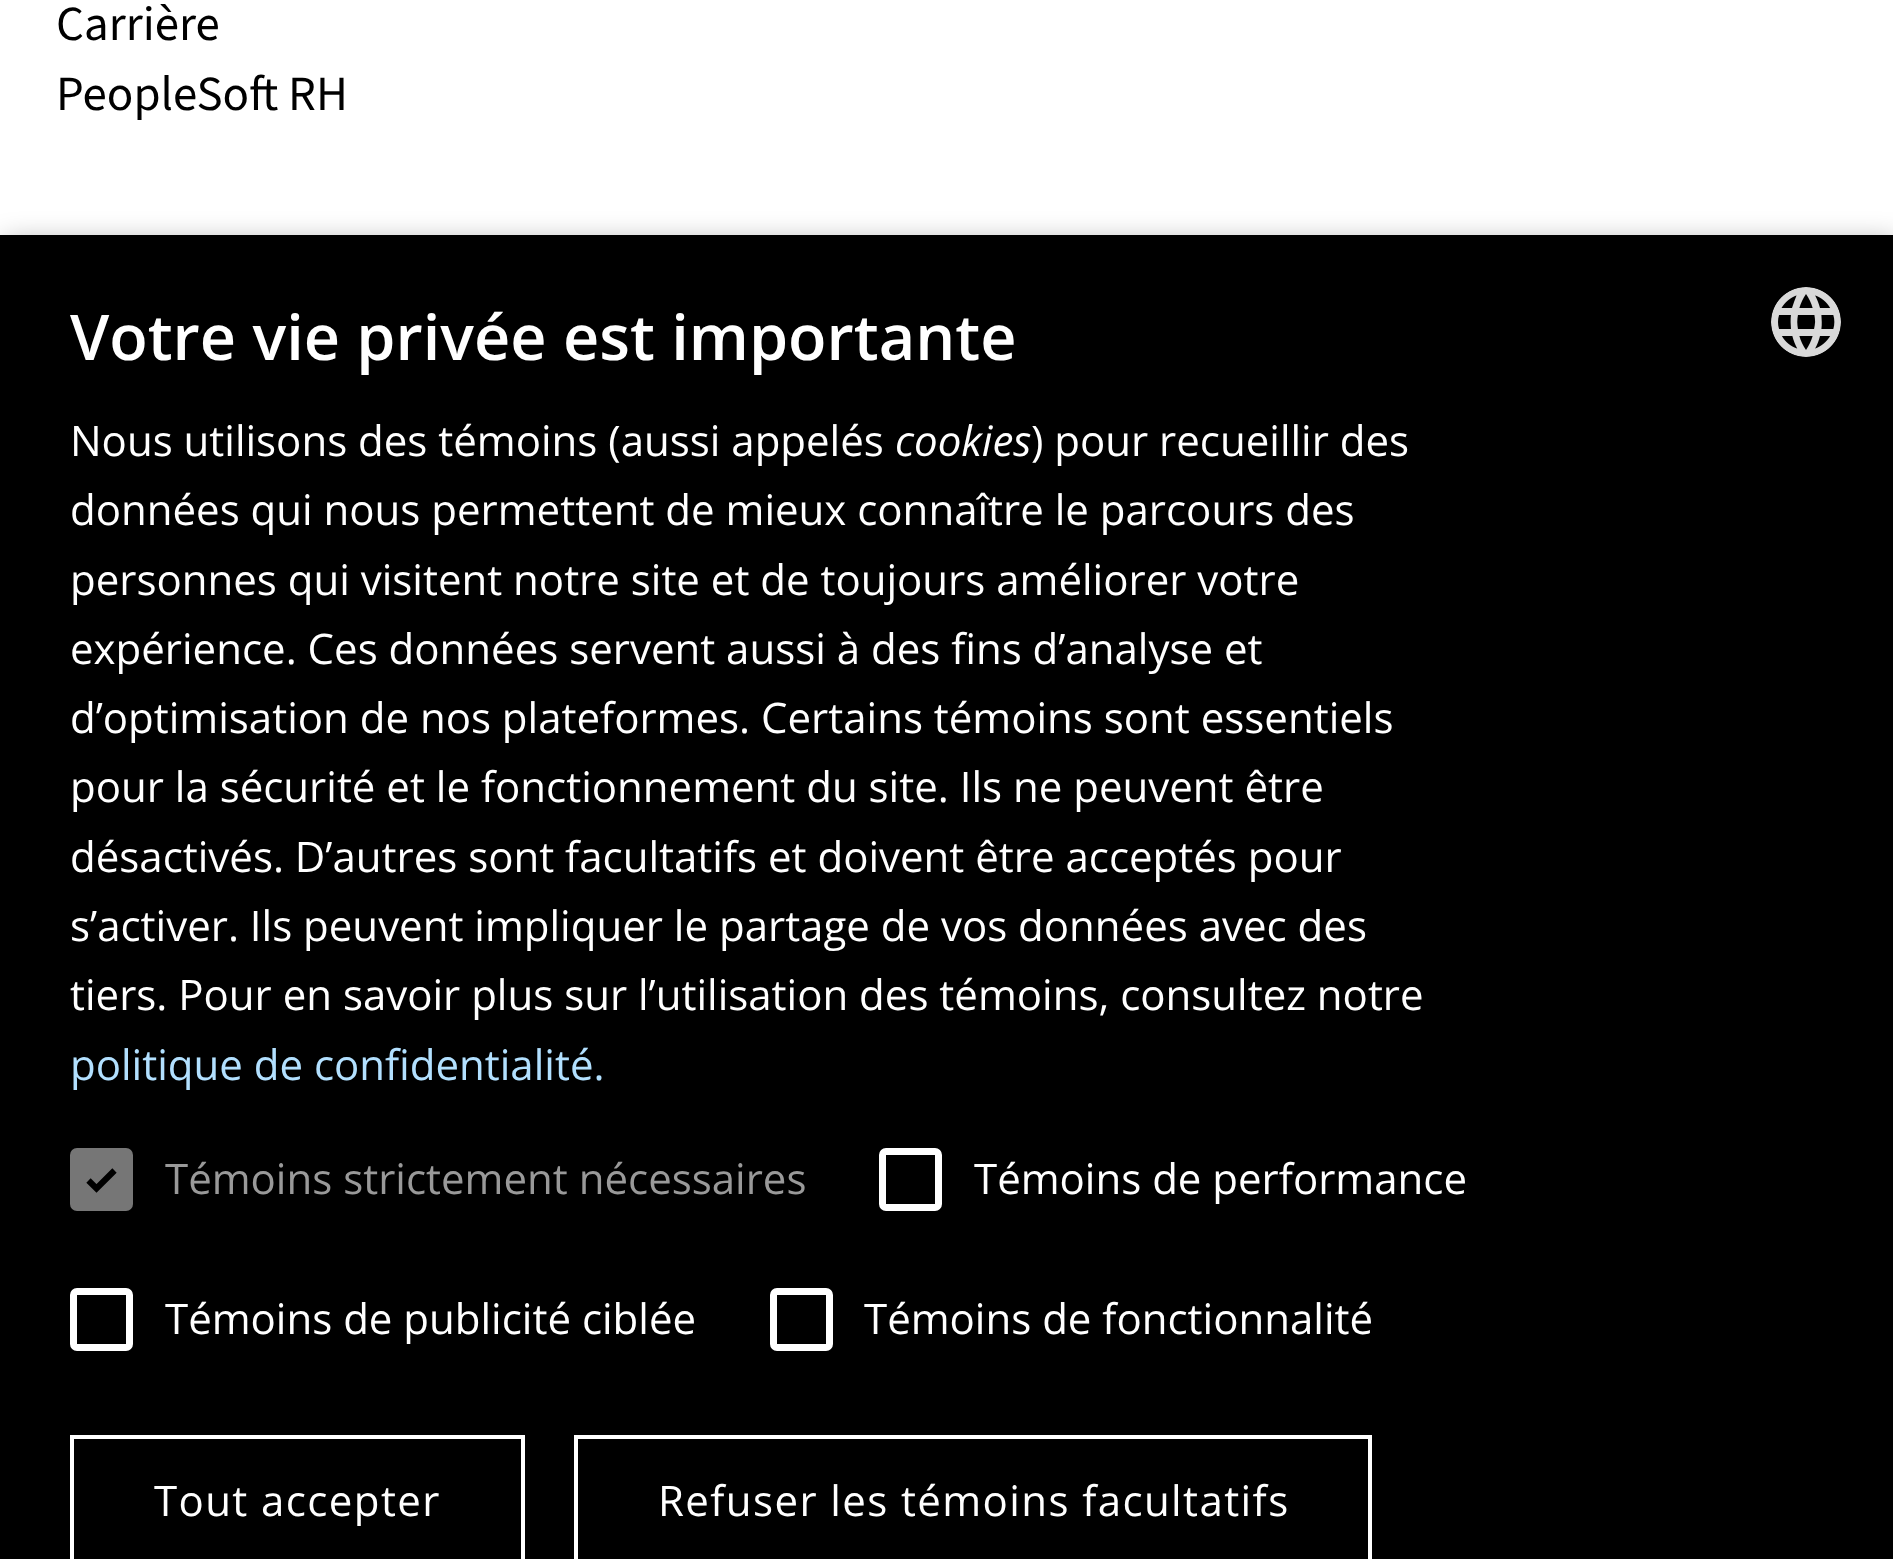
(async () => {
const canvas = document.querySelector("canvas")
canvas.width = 1893
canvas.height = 1559
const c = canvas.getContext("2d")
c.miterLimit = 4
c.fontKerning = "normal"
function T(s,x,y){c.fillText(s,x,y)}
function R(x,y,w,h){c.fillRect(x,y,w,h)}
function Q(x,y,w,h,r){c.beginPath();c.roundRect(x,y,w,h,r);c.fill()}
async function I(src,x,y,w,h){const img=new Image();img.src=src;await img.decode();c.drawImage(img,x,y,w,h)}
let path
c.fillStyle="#fff"
R(0,0,1893,1559)
c.font="49px 'Source Sans 3'"
c.fillStyle="#000"
T("Carrière",56,40)
T("PeopleSoft RH",56,110)
c.fillStyle="#00000059"
c.filter="blur(14px)"
c.beginPath()
c.rect(4,242,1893,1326)
c.fill()
c.filter="none"
c.fillStyle="#000"
R(0,235,1893,1324)
c.font="600 63px Open Sans"
c.fillStyle="#fff"
T("Votre vie privée est importante",70,360)
await I("1.png",1771,287,70,70)
c.font="42px Open Sans"
T("Nous utilisons des témoins (aussi appelés",70,456)
c.font="italic 42px Open Sans"
T("cookies",895,456)
c.font="42px Open Sans"
T(") pour recueillir des",1031,456)
T("données qui nous permettent de mieux connaître le parcours des",70,525)
T("personnes qui visitent notre site et de toujours améliorer votre",70,595)
T("expérience. Ces données servent aussi à des fins d’analyse et",70,664)
T("d’optimisation de nos plateformes. Certains témoins sont essentiels",70,733)
T("pour la sécurité et le fonctionnement du site. Ils ne peuvent être",70,802)
T("désactivés. D’autres sont facultatifs et doivent être acceptés pour",70,872)
T("s’activer. Ils peuvent impliquer le partage de vos données avec des",70,941)
T("tiers. Pour en savoir plus sur l’utilisation des témoins, consultez notre",70,1010)
c.fillStyle="#b2e0ff"
T("politique de confidentialité.",70,1080)
c.fillStyle="#767676"
Q(70,1148,63,63,7)
path = new Path2D("M88.5 1180.5l8 8l18-18")
c.strokeStyle="#000"
c.lineWidth=6.1
c.stroke(path)
c.fillStyle="#999"
T("Témoins strictement nécessaires",165,1194)
c.beginPath()
c.roundRect(882.5,1151.5,56,56,3.5)
c.strokeStyle="#fff"
c.lineWidth=7
c.stroke()
c.fillStyle="#fff"
T("Témoins de performance",974,1194)
c.beginPath()
c.roundRect(73.5,1291.5,56,56,3.5)
c.stroke()
T("Témoins de publicité ciblée",165,1334)
c.beginPath()
c.roundRect(773.5,1291.5,56,56,3.5)
c.stroke()
T("Témoins de fonctionnalité",864,1334)
c.lineWidth=4
c.strokeRect(72,1437,451,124)
c.letterSpacing="1.4px"
T("Tout accepter",154,1516)
c.strokeRect(576,1437,794,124)
T("Refuser les témoins facultatifs",658,1516)
})()
